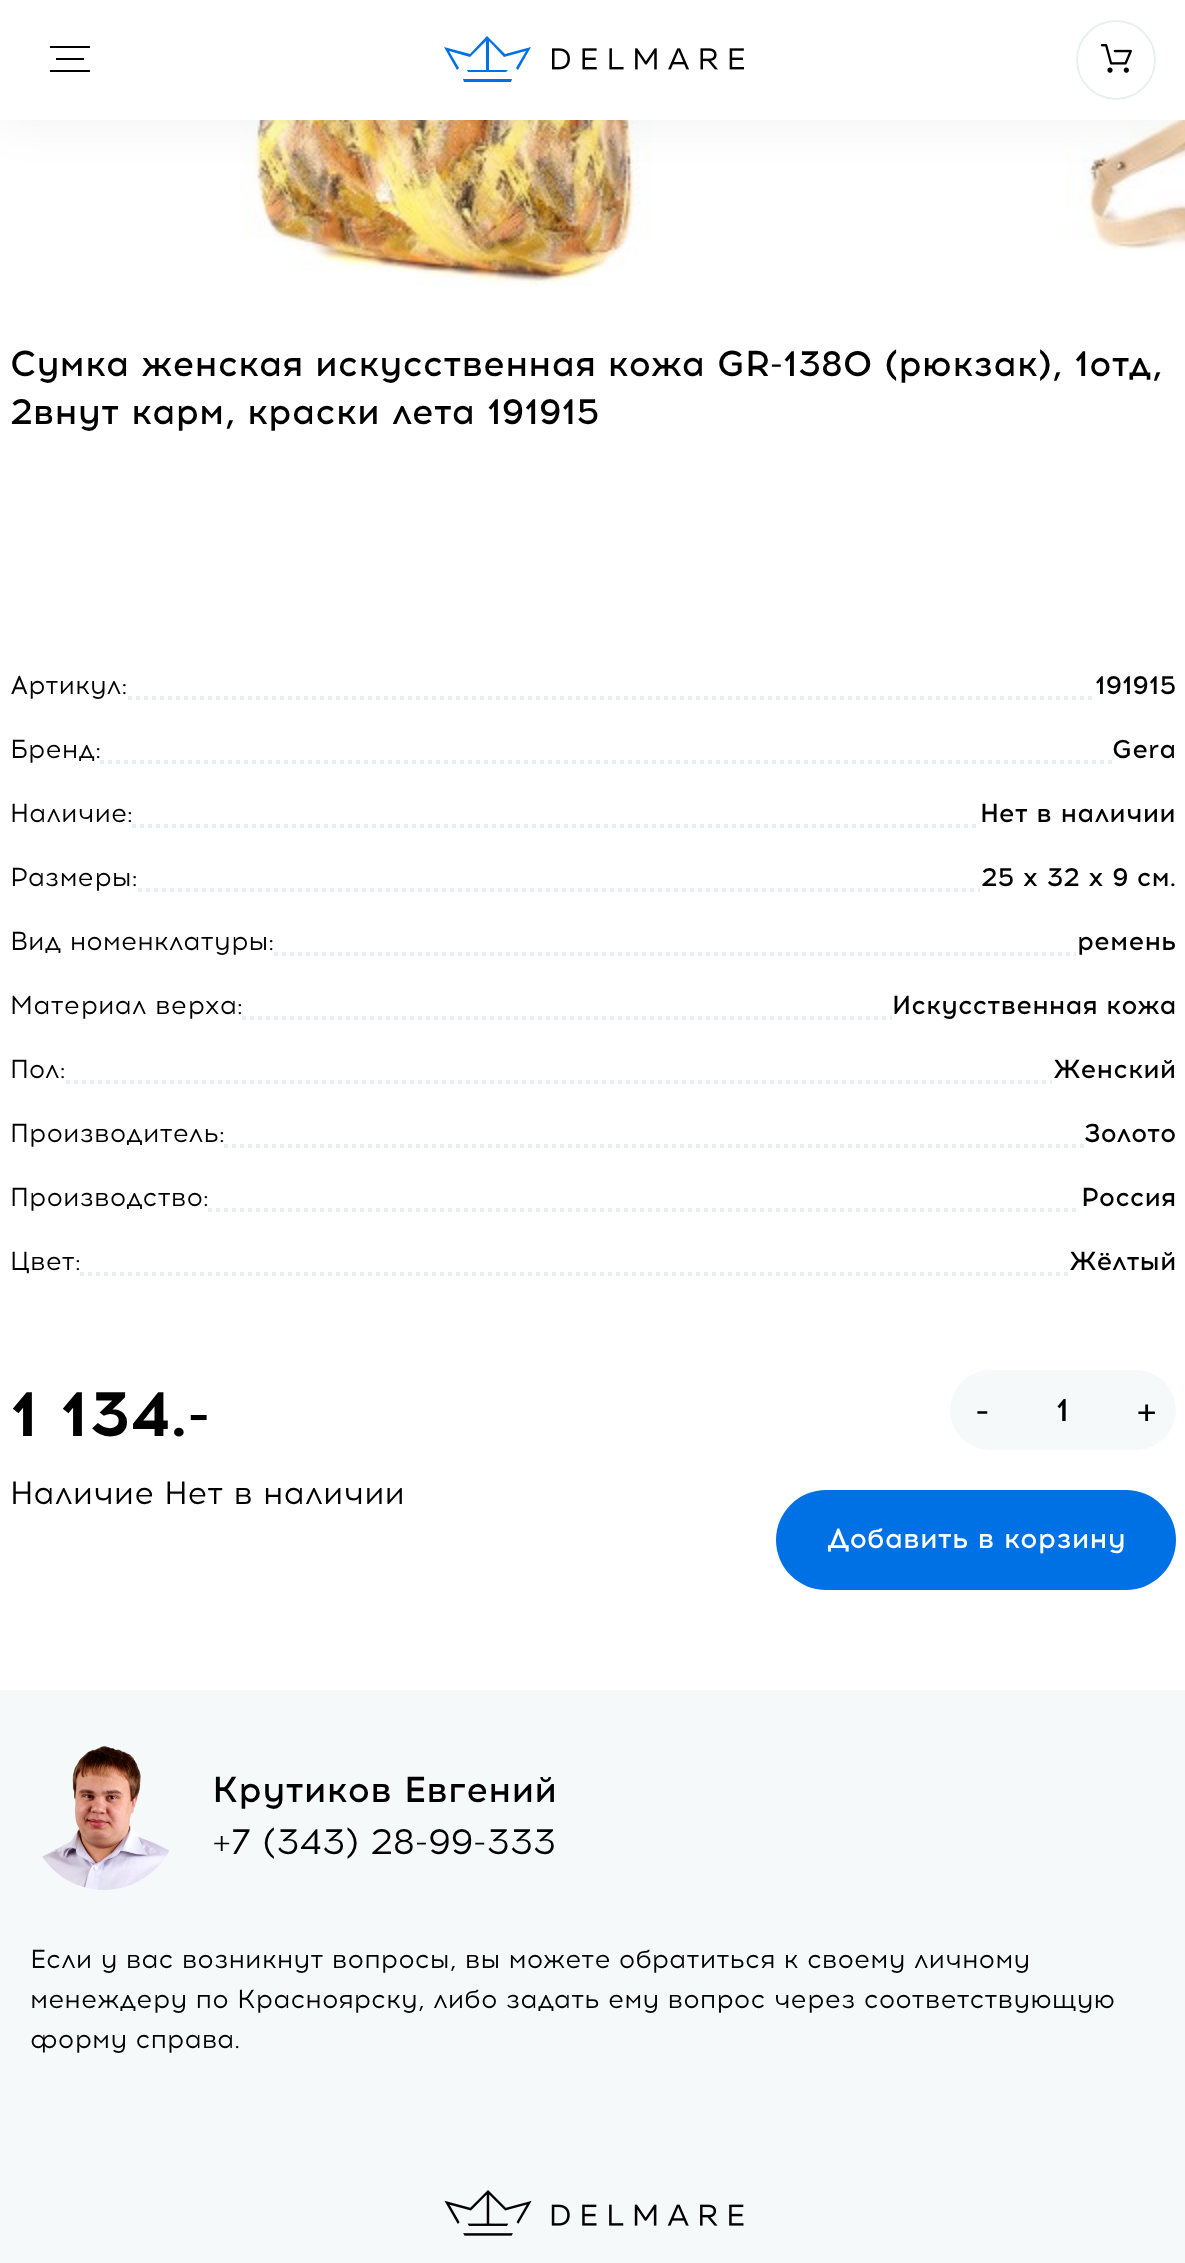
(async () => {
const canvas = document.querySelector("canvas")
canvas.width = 1185
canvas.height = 2263
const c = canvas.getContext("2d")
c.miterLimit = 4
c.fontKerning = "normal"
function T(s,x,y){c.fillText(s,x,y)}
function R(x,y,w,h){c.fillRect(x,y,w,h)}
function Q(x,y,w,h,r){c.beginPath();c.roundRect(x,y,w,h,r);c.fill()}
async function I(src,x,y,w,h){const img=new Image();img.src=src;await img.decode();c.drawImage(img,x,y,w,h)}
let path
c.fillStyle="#fff"
R(0,0,1185,2263)
await I("3.png",240,120,411,166)
await I("4.png",1066,120,119,130)
c.fillStyle="#0000000f"
c.filter="blur(25px)"
c.beginPath()
c.rect(0,0,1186,120)
c.fill()
c.filter="none"
c.fillStyle="#fff"
R(0,0,1185,120)
c.fillStyle="#000"
R(56,58,28,2)
R(50,46,40,2)
R(50,70,40,2)
c.fillStyle="#0071e4"
path = new Path2D("M516 68l10-17l-22 6l-15-16v29h19l-2 2h-38l-1-2h19v-29l-16 16l-21-6l10 17l-2 2l-13-23l26 7l17-18l18 18l26-7l-13 23zm-53 11l1 3h47l1-3z")
c.fill(path,"evenodd")
await I("1.png",552,48,192,22)
c.beginPath()
c.arc(1116,60,39,0,7)
c.strokeStyle="#e9f0f2"
c.lineWidth=2
c.stroke()
await I("2.png",1100,44,32,29)
c.font="500 36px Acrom"
c.fillStyle="#000"
T("Сумка женская искусственная кожа GR-1380 (рюкзак), 1отд,",10,376)
T("2внут карм, краски лета 191915",10,424)
c.font="26px Acrom"
T("Артикул:",10,694)
c.font="500 26px Acrom"
T("191915",1095,694)
path = new Path2D("M128 698h966")
c.lineWidth=4
c.setLineDash([4,4])
c.stroke(path)
c.font="26px Acrom"
T("Бренд:",10,758)
c.font="500 26px Acrom"
T("Gera",1112,758)
path = new Path2D("M100 762h1012")
c.stroke(path)
c.font="26px Acrom"
T("Наличие:",10,822)
c.font="500 26px Acrom"
T("Нет в наличии",980,822)
path = new Path2D("M132 826h848")
c.stroke(path)
c.font="26px Acrom"
T("Размеры:",10,886)
c.font="500 26px Acrom"
T("25 x 32 x 9 см.",981,886)
path = new Path2D("M138 890h842")
c.stroke(path)
c.font="26px Acrom"
T("Вид номенклатуры:",10,950)
path = new Path2D("M274 954h802")
c.stroke(path)
c.font="500 26px Acrom"
T("ремень",1077,950)
c.font="26px Acrom"
T("Материал верха:",10,1014)
path = new Path2D("M242 1018h650")
c.stroke(path)
c.font="500 26px Acrom"
T("Искусственная кожа",892,1014)
c.font="26px Acrom"
T("Пол:",10,1078)
c.font="500 26px Acrom"
T("Женский",1053,1078)
path = new Path2D("M66 1082h986")
c.stroke(path)
c.font="26px Acrom"
T("Производитель:",10,1142)
c.font="500 26px Acrom"
T("Золото",1084,1142)
path = new Path2D("M224 1146h860")
c.stroke(path)
c.font="26px Acrom"
T("Производство:",10,1206)
c.font="500 26px Acrom"
T("Россия",1081,1206)
path = new Path2D("M208 1210h872")
c.stroke(path)
c.font="26px Acrom"
T("Цвет:",10,1270)
c.font="500 26px Acrom"
T("Жёлтый",1069,1270)
path = new Path2D("M80 1274h988")
c.stroke(path)
c.font="bold 64px Acrom"
T("1 134.-",10,1436)
c.font="32px Acrom"
T("Наличие Нет в наличии",10,1504)
c.fillStyle="#f6f9fa"
Q(950,1370,226,80,40)
c.font="500 40px Acrom"
c.fillStyle="#000"
T("-",975,1424)
c.font="500 32px Acrom"
T("1",1056,1421)
c.font="500 40px Acrom"
T("+",1136,1424)
c.fillStyle="#0071e4"
Q(776,1490,400,100,50)
c.font="500 28px Acrom"
c.fillStyle="#fff"
T("Добавить в корзину",827,1548)
c.fillStyle="#f6f9fa"
R(0,1690,1185,573)
await I("5.png",42,1746,128,144)
c.font="500 36px Acrom"
c.fillStyle="#000"
T("Крутиков Евгений",212,1802)
c.font="36px Acrom"
T("+7 (343) 28-99-333",212,1854)
c.font="26px Acrom"
T("Если у вас возникнут вопросы, вы можете обратиться к своему личному",30,1968)
T("менеждеру по Красноярску, либо задать ему вопрос через соответствующую",30,2008)
T("форму справа.",30,2048)
await I("6.png",444,2190,300,46)
})()
